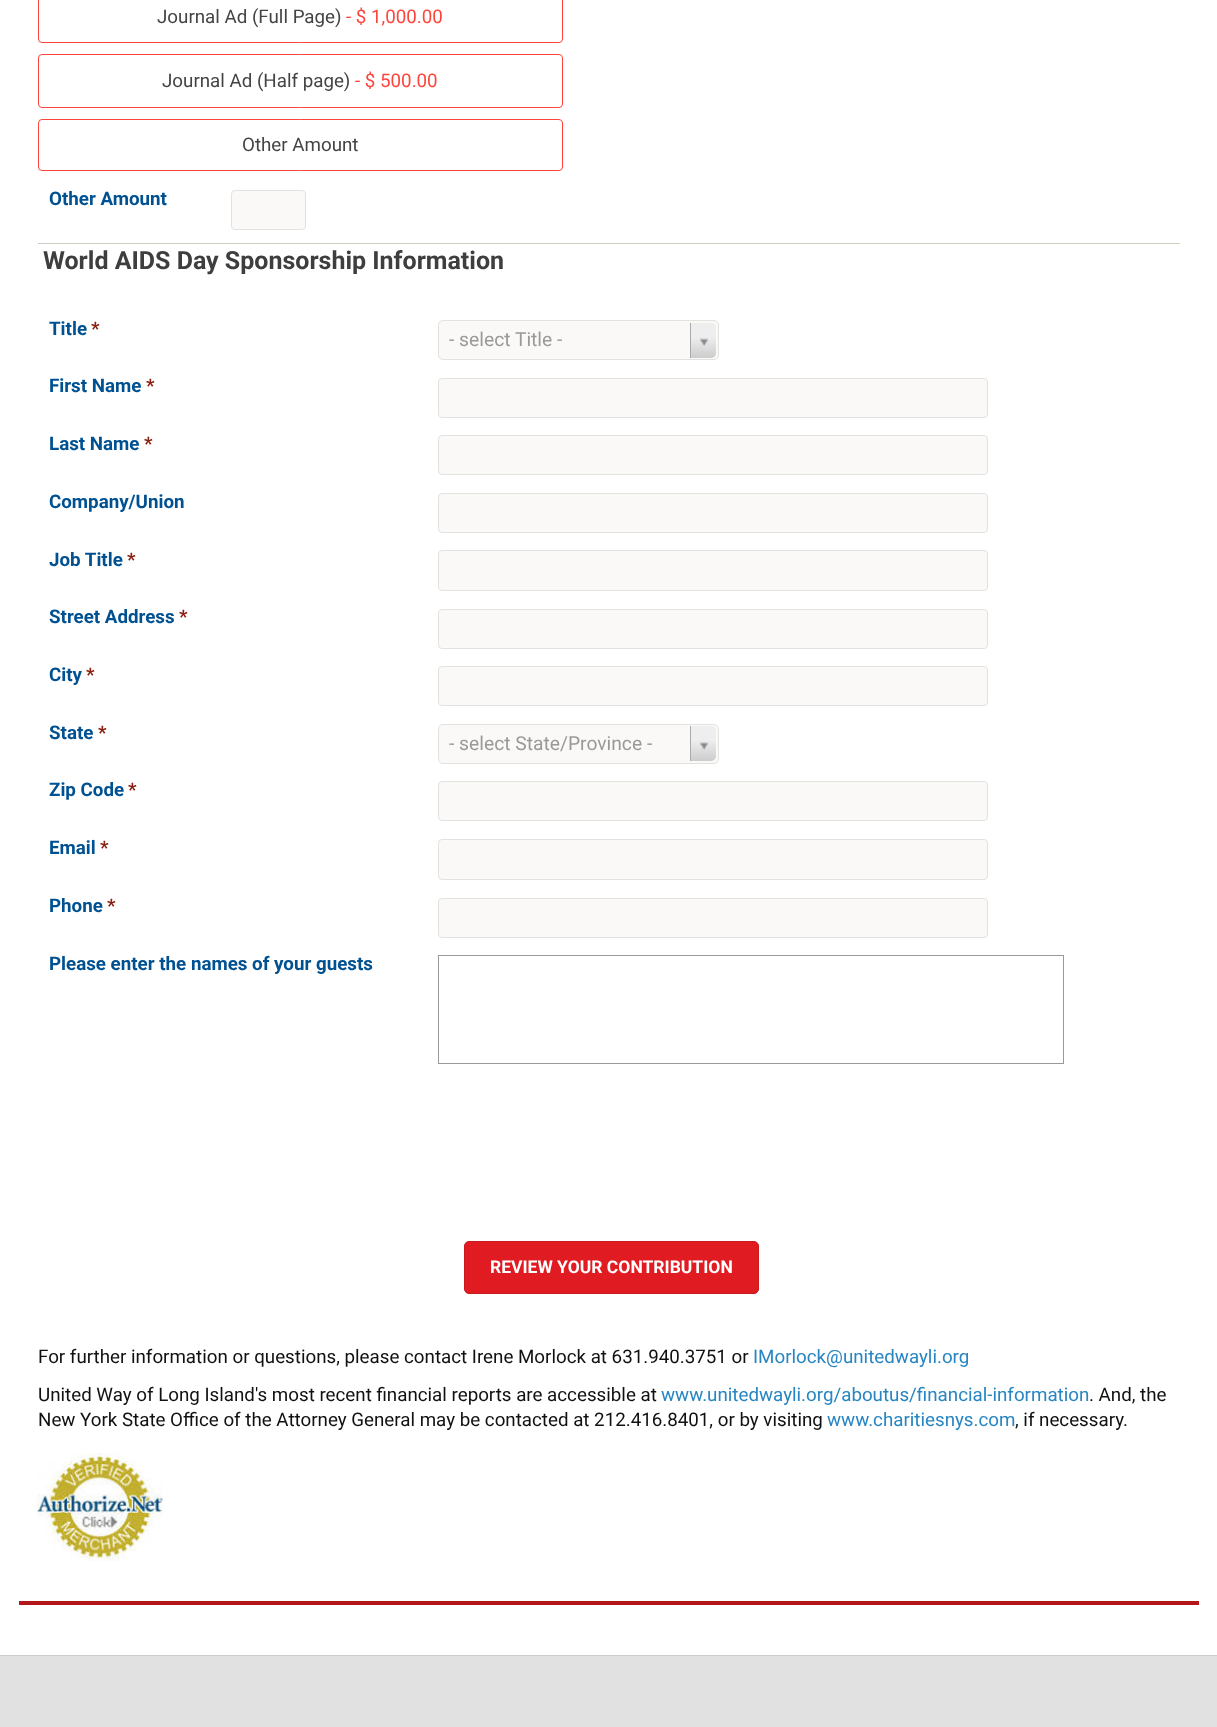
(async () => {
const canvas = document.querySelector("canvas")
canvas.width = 1217
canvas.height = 1727
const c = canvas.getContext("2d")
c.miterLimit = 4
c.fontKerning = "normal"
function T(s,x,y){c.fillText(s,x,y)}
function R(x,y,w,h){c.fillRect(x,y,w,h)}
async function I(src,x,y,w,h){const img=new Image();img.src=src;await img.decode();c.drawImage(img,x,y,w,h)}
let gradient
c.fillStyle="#fff"
R(0,0,1217,1727)
c.fillStyle="#b3161b"
R(19,1601,1180,4)
c.beginPath()
c.roundRect(38.5,-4.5,524,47,3.5)
c.strokeStyle="#ff443b"
c.stroke()
c.font="18.75px Roboto"
c.fillStyle="#444"
T("Journal Ad (Full Page)",157,23)
c.fillStyle="#ff443b"
T("- $ 1,000.00",346,23)
c.beginPath()
c.roundRect(38.5,54.5,524,53,3.5)
c.stroke()
c.fillStyle="#444"
T("Journal Ad (Half page)",162,87)
c.fillStyle="#ff443b"
T("- $ 500.00",355,87)
c.beginPath()
c.roundRect(38.5,119.5,524,51,3.5)
c.stroke()
c.fillStyle="#444"
T("Other Amount",242,151)
c.font="bold 18.75px Roboto"
c.fillStyle="#005191"
T("Other Amount",49,205)
c.fillStyle="#fbf9f8"
c.beginPath()
c.roundRect(231.5,190.5,74,39,3.5)
c.fill()
c.strokeStyle="#e4e2de"
c.stroke()
c.fillStyle="#cfcec3"
R(38,243,1142,1)
c.font="bold 25px Roboto"
c.fillStyle="#3e3e3e"
T("World AIDS Day Sponsorship Information",43,269)
c.font="bold 18.75px Roboto"
c.fillStyle="#005191"
T("Title",49,335)
c.fillStyle="#8a1f11"
T("*",91,335)
c.fillStyle="#fbf9f8"
c.beginPath()
c.roundRect(438.5,320.5,280,39,4.5)
c.fill()
c.stroke()
c.font="19.25px Roboto"
c.fillStyle="#999"
T("- select Title -",449,346)
gradient = c.createLinearGradient(704,358,704,323)
gradient.addColorStop(0,"#ccc")
gradient.addColorStop(.6,"#eee")
c.fillStyle = gradient
c.beginPath()
c.roundRect(690,323,26,35,[0,5,5,0])
c.fill()
c.fillStyle="#aaa"
R(690,323,1,35)
await I("1.png",700,338,9,8)
c.font="bold 18.75px Roboto"
c.fillStyle="#005191"
T("First Name",49,392)
c.fillStyle="#8a1f11"
T("*",146,392)
c.fillStyle="#fbf9f8"
c.beginPath()
c.roundRect(438.5,378.5,549,39,3.5)
c.fill()
c.stroke()
c.fillStyle="#005191"
T("Last Name",49,450)
c.fillStyle="#8a1f11"
T("*",144,450)
c.fillStyle="#fbf9f8"
c.beginPath()
c.roundRect(438.5,435.5,549,39,3.5)
c.fill()
c.stroke()
c.fillStyle="#005191"
T("Company/Union",49,508)
c.fillStyle="#fbf9f8"
c.beginPath()
c.roundRect(438.5,493.5,549,39,3.5)
c.fill()
c.stroke()
c.fillStyle="#005191"
T("Job Title",49,566)
c.fillStyle="#8a1f11"
T("*",127,566)
c.fillStyle="#fbf9f8"
c.beginPath()
c.roundRect(438.5,550.5,549,40,3.5)
c.fill()
c.stroke()
c.fillStyle="#005191"
T("Street Address",49,623)
c.fillStyle="#8a1f11"
T("*",179,623)
c.fillStyle="#fbf9f8"
c.beginPath()
c.roundRect(438.5,609.5,549,39,3.5)
c.fill()
c.stroke()
c.fillStyle="#005191"
T("City",49,681)
c.fillStyle="#8a1f11"
T("*",86,681)
c.fillStyle="#fbf9f8"
c.beginPath()
c.roundRect(438.5,666.5,549,39,3.5)
c.fill()
c.stroke()
c.fillStyle="#005191"
T("State",49,739)
c.fillStyle="#8a1f11"
T("*",98,739)
c.fillStyle="#fbf9f8"
c.beginPath()
c.roundRect(438.5,724.5,280,39,4.5)
c.fill()
c.stroke()
c.font="19.25px Roboto"
c.fillStyle="#999"
T("- select State/Province -",449,750)
gradient = c.createLinearGradient(704,761,704,726)
gradient.addColorStop(0,"#ccc")
gradient.addColorStop(.6,"#eee")
c.fillStyle = gradient
c.beginPath()
c.roundRect(690,726,26,35,[0,5,5,0])
c.fill()
c.fillStyle="#aaa"
R(690,726,1,35)
await I("2.png",700,742,9,8)
c.font="bold 18.75px Roboto"
c.fillStyle="#005191"
T("Zip Code",49,796)
c.fillStyle="#8a1f11"
T("*",128,796)
c.fillStyle="#fbf9f8"
c.beginPath()
c.roundRect(438.5,781.5,549,39,3.5)
c.fill()
c.stroke()
c.fillStyle="#005191"
T("Email",49,854)
c.fillStyle="#8a1f11"
T("*",100,854)
c.fillStyle="#fbf9f8"
c.beginPath()
c.roundRect(438.5,839.5,549,40,3.5)
c.fill()
c.stroke()
c.fillStyle="#005191"
T("Phone",49,912)
c.fillStyle="#8a1f11"
T("*",107,912)
c.fillStyle="#fbf9f8"
c.beginPath()
c.roundRect(438.5,898.5,549,39,3.5)
c.fill()
c.stroke()
c.fillStyle="#005191"
T("Please enter the names of your guests",49,970)
c.strokeStyle="#999"
c.strokeRect(438.5,955.5,625,108)
c.fillStyle="#e11b22"
c.beginPath()
c.roundRect(464.5,1241.5,294,52,4.5)
c.fill()
c.strokeStyle="#ca181f"
c.stroke()
c.font="bold 17.5px Roboto"
c.fillStyle="#fff"
T("REVIEW YOUR CONTRIBUTION",490,1273)
c.font="18.75px Roboto"
c.fillStyle="#111"
T("For further information or questions, please contact Irene Morlock at 631.940.3751 or",38,1363)
c.fillStyle="#2786c2"
T("IMorlock@unitedwayli.org",753,1363)
c.fillStyle="#111"
T("United Way of Long Island's most recent financial reports are accessible at",38,1401)
c.fillStyle="#2786c2"
T("www.unitedwayli.org/aboutus/financial-information",661,1401)
c.fillStyle="#111"
T(". And, the",1089,1401)
T("New York State Office of the Attorney General may be contacted at 212.416.8401, or by visiting",38,1426)
c.fillStyle="#2786c2"
T("www.charitiesnys.com",827,1426)
c.fillStyle="#111"
T(", if necessary.",1015,1426)
await I("3.png",37,1453,126,108)
c.fillStyle="#e1e1e1"
R(0,1656,1217,71)
c.fillStyle="#ccc"
R(0,1655,1217,1)
})()
